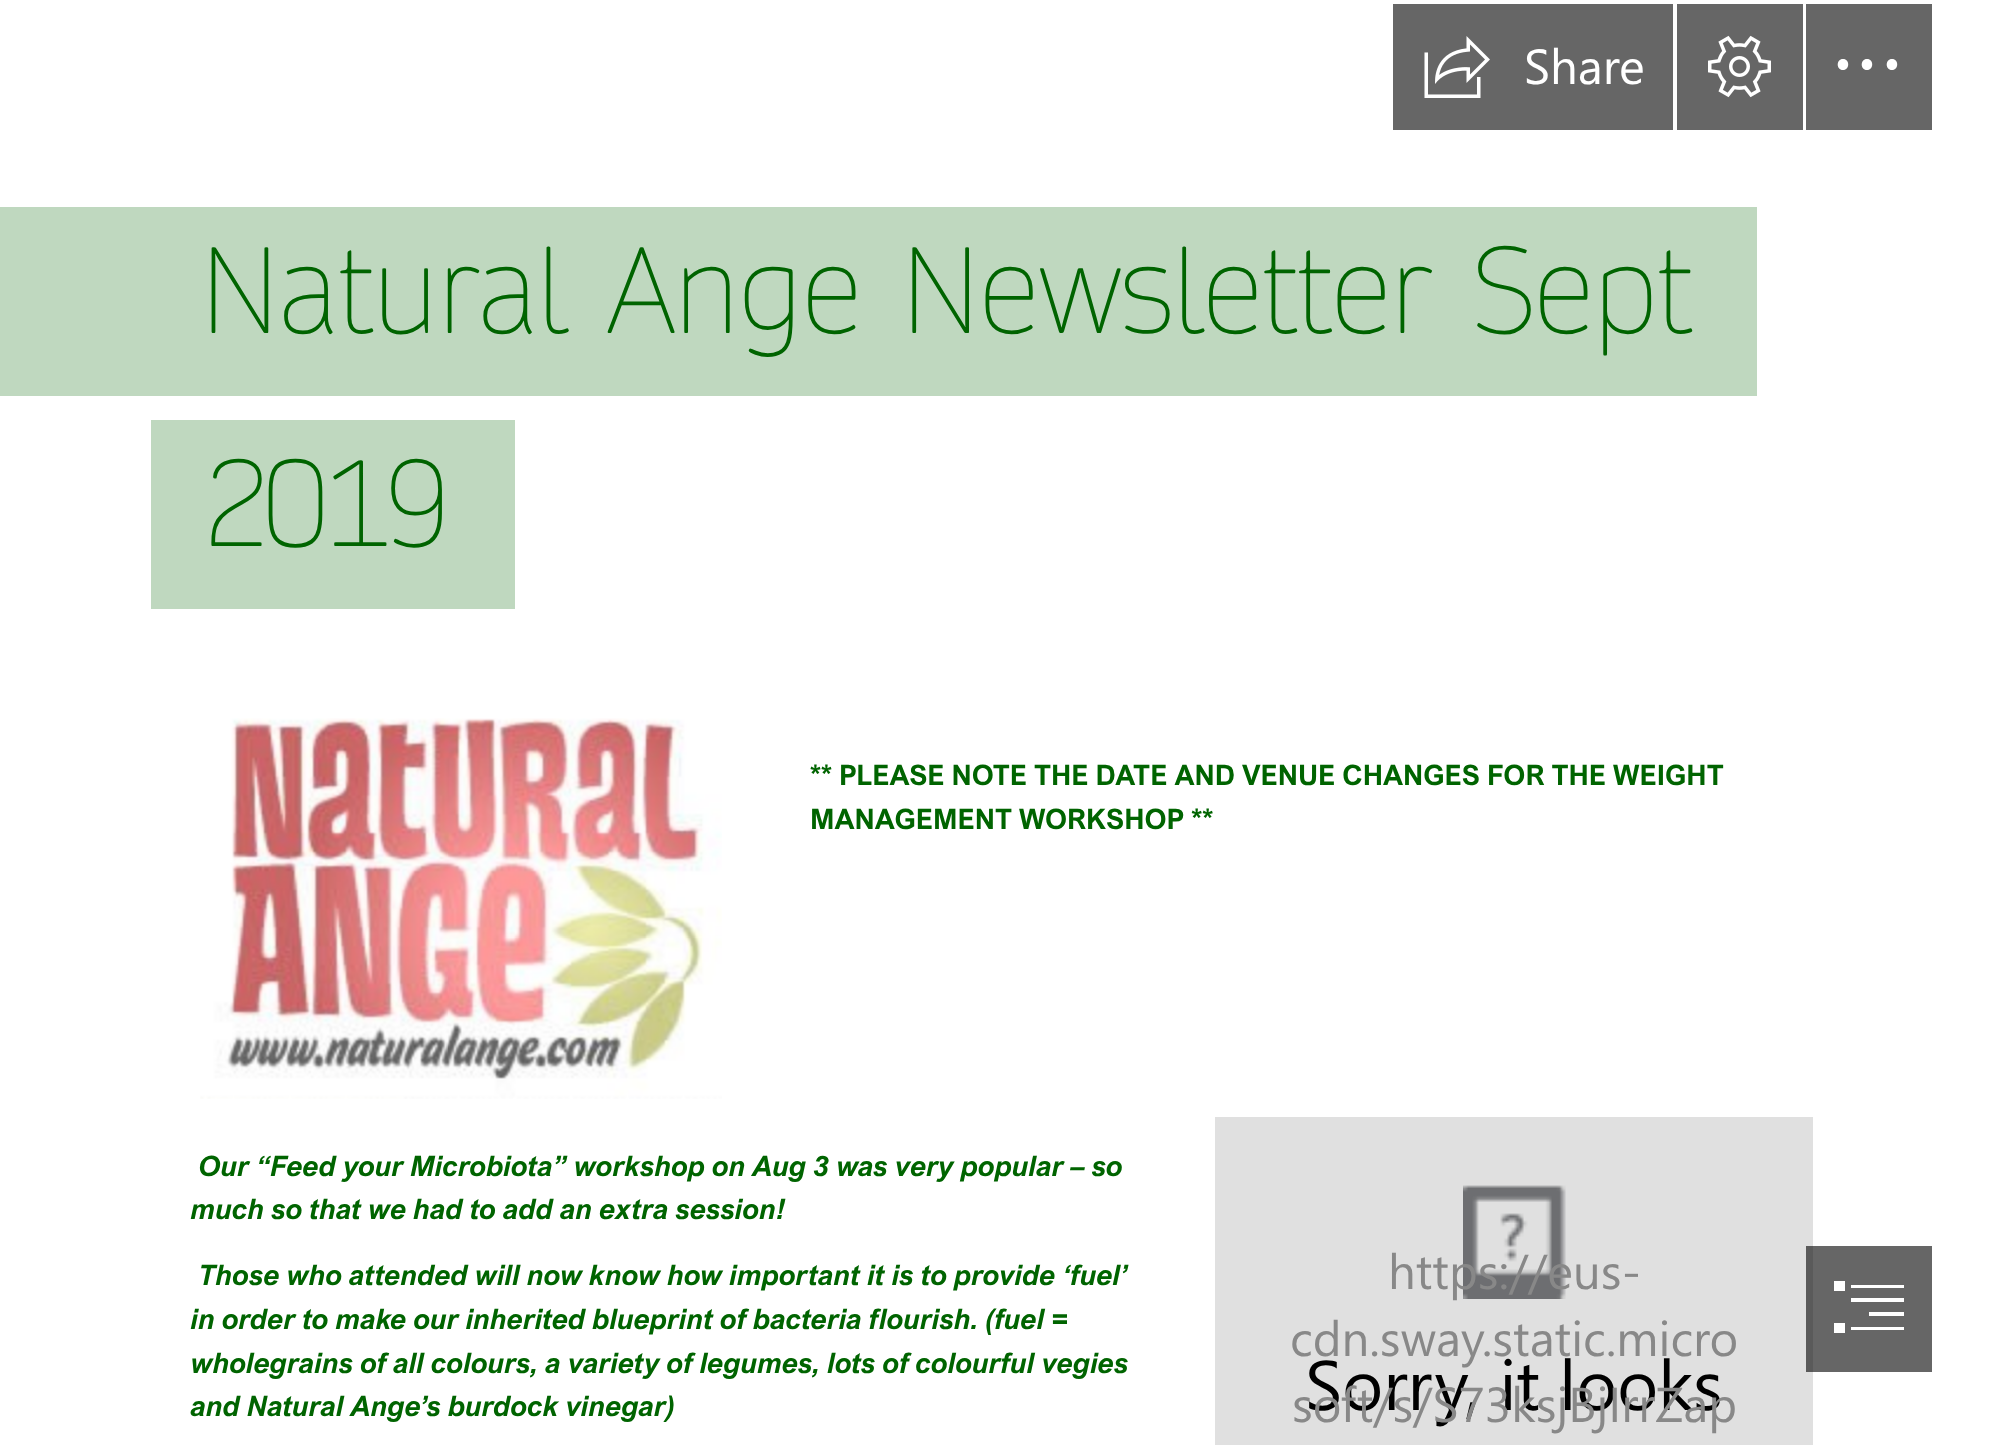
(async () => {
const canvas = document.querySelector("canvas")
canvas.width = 2002
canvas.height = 1445
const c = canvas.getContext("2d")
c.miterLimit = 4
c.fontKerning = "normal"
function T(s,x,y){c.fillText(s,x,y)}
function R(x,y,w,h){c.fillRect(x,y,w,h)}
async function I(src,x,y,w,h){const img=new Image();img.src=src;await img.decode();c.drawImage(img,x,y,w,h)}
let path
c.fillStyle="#fff"
R(0,0,2002,1445)
c.fillStyle="#666"
R(1393,4,280,126)
await I("1.png",1424,36,66,62)
c.font="49px Segoe UI"
c.fillStyle="#fff"
T("Share",1524,84)
c.fillStyle="#666"
R(1677,4,126,126)
await I("2.png",1708,35,63,63)
R(1806,4,126,126)
c.fillStyle="#fff"
path = new Path2D("M1843 59c7 0 7 11 0 11c-7 0-7-11 0-11zm24 0c7 0 7 11 0 11c-7 0-7-11 0-11zm25 0c7 0 7 11 0 11c-7 0-7-11 0-11z")
c.fill(path)
c.fillStyle="#666"
R(1813,1246,119,126)
c.fillStyle="#bfd8bf"
R(0,207,1757,189)
c.letterSpacing="-2px"
c.font="100 117.25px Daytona"
c.fillStyle="#006400"
T("Natural Ange Newsletter Sept",200,333)
c.fillStyle="#bfd8bf"
R(151,420,364,189)
c.letterSpacing="-9.5px"
c.fillStyle="#006400"
T("2019",200,546)
await I("3.png",200,718,522,381)
c.letterSpacing="0px"
c.font="bold 28.15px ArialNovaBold"
T("** PLEASE NOTE THE DATE AND VENUE CHANGES FOR THE WEIGHT",810,785)
T("MANAGEMENT WORKSHOP **",810,829)
c.font="italic bold 28.15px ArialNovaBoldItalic"
T("Our “Feed your Microbiota” workshop on Aug 3 was very popular – so",199,1176)
T("much so that we had to add an extra session!",191,1219)
T("Those who attended will now know how important it is to provide ‘fuel’",199,1285)
T("in order to make our inherited blueprint of bacteria flourish. (fuel =",191,1329)
T("wholegrains of all colours, a variety of legumes, lots of colourful vegies",191,1373)
T("and Natural Ange’s burdock vinegar)",191,1416)
c.fillStyle="#e0e0e0"
R(1215,1117,598,328)
c.fillStyle="#5a5a5a"
R(1806,1246,7,126)
await I("4.png",1463,1185,103,114)
c.font="49px Segoe UI"
c.fillStyle="#888"
T("https://eus-",1388,1289)
T("cdn.sway.static.micro",1290,1356)
c.font="70px Segoe UI"
c.fillStyle="#000"
T("Sorry, it looks",1305,1410)
c.font="49px Segoe UI"
c.fillStyle="#888"
T("soft/s/S73ksjBjIrrZap",1292,1422)
c.fillStyle="#fff"
path = new Path2D("M1904 1288h-53v-3h53zm-59 3h-11v-10h11zm0 42h-11v-10h11zm59-31h-53v-4h53zm0 28h-53v-3h53zm0-18h-35v4h35z")
c.fill(path)
})()
